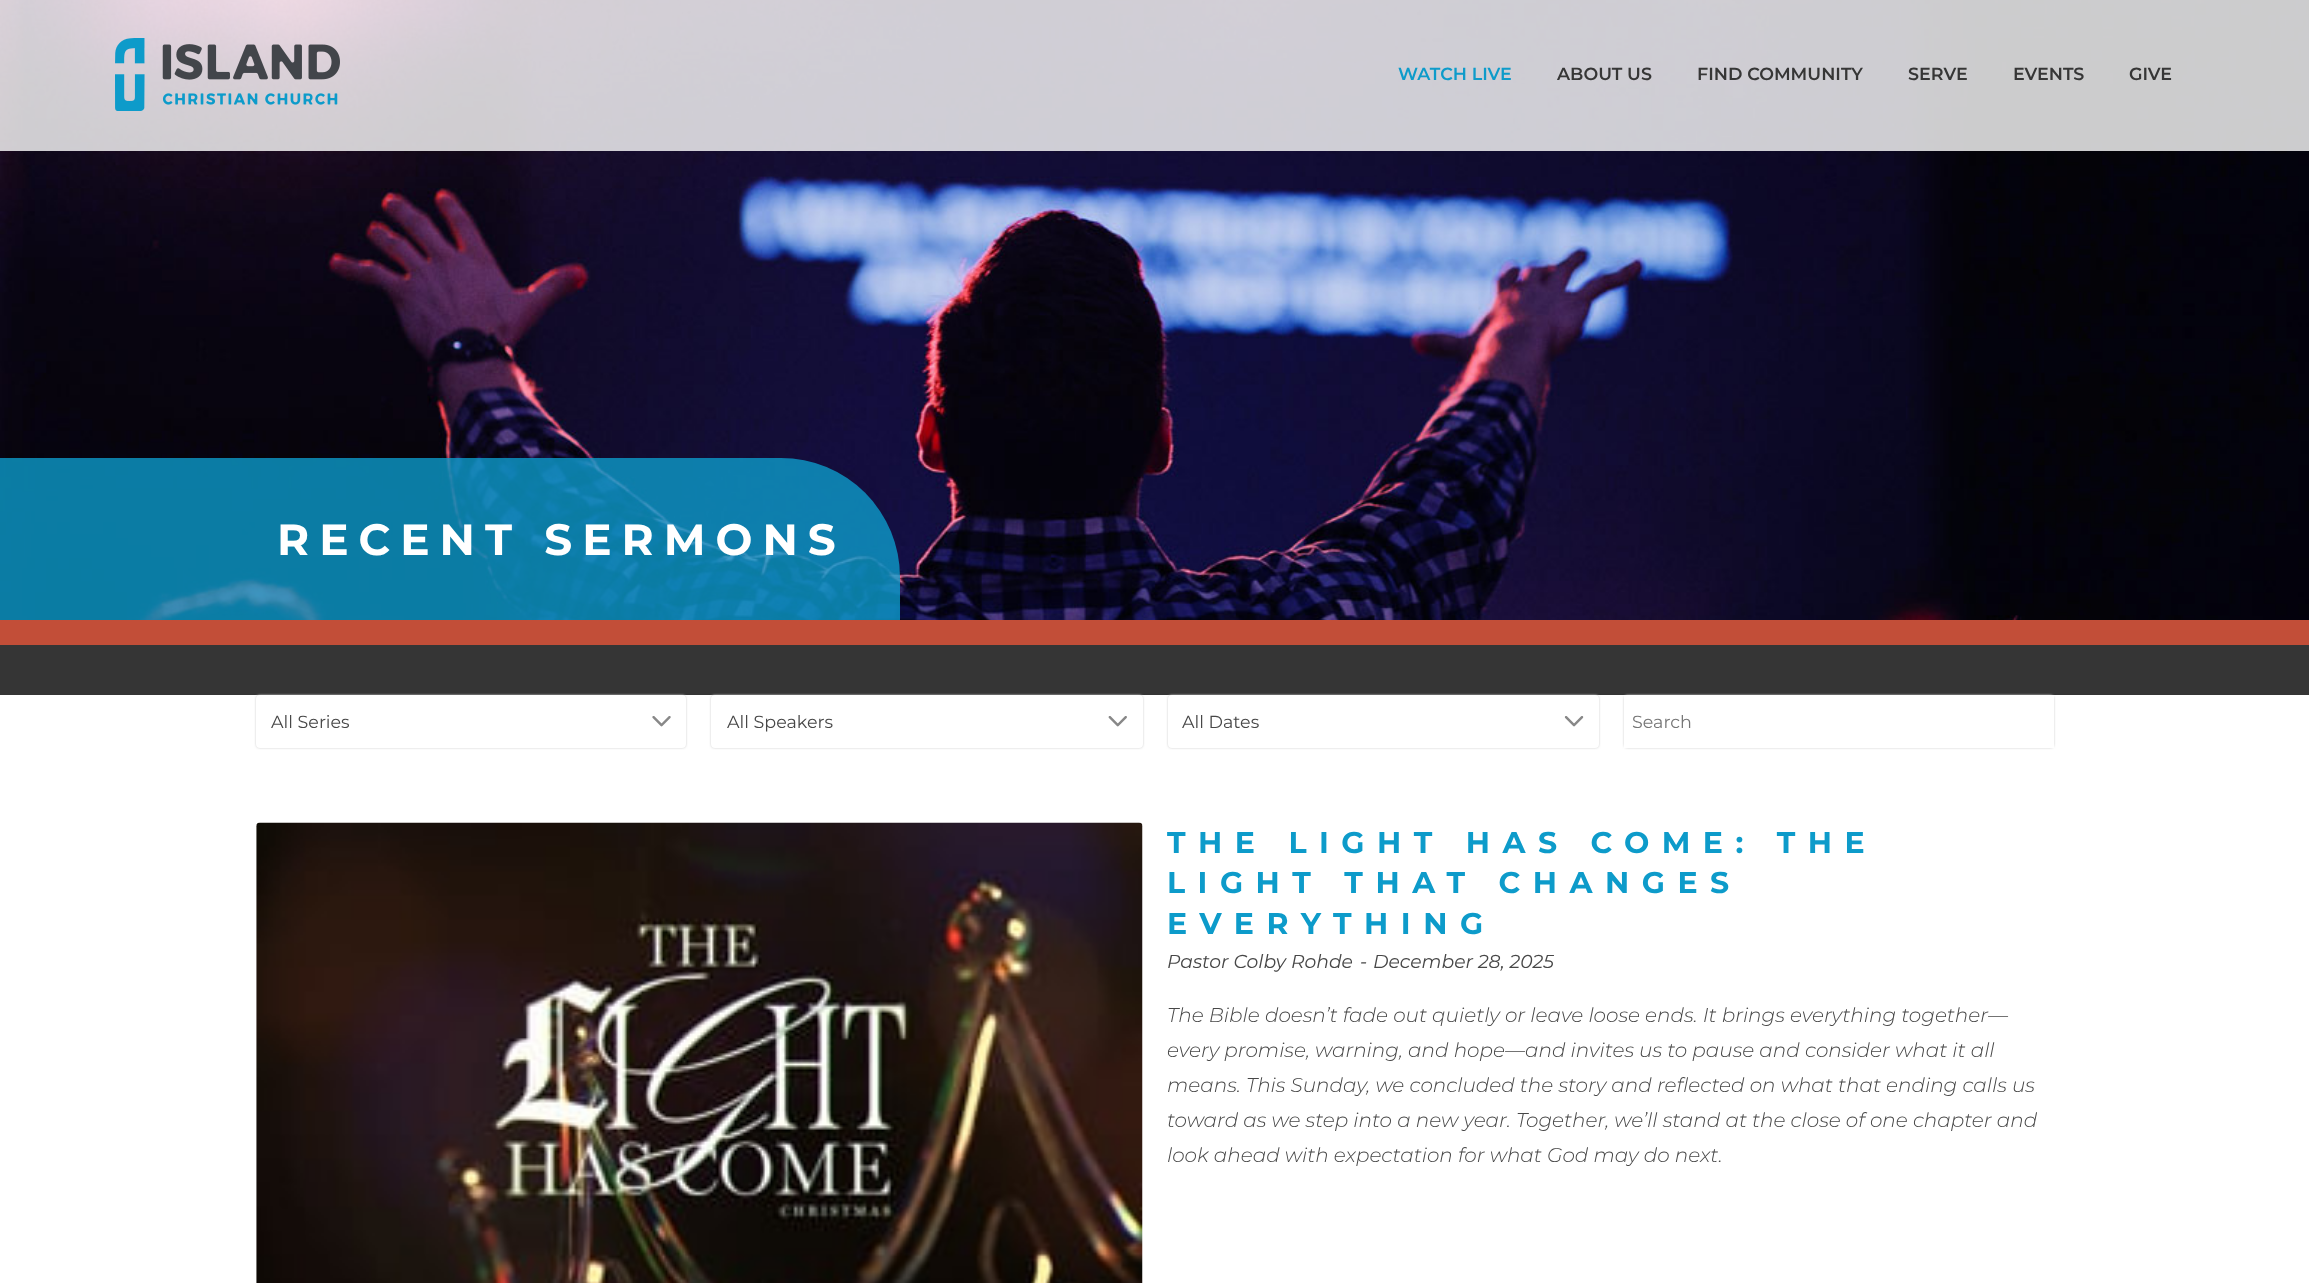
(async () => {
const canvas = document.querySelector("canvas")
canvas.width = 2309
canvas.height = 1283
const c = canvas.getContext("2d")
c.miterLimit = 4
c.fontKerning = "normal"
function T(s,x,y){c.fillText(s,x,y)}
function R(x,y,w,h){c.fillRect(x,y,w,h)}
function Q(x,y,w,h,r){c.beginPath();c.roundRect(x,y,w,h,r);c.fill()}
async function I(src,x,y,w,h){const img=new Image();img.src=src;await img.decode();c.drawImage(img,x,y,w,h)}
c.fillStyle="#353535"
R(0,0,2309,1283)
await I("2.png",0,0,2309,620)
c.fillStyle="#ffffffcc"
R(0,0,2309,151)
await I("1.png",115,38,225,73)
c.font="600 17.5px Montserrat"
c.fillStyle="#0d9bca"
T("WATCH LIVE",1398,80)
c.fillStyle="#363636"
T("ABOUT US",1557,80)
T("FIND COMMUNITY",1697,80)
T("SERVE",1908,80)
T("EVENTS",2013,80)
T("GIVE",2129,80)
c.fillStyle="#c24e38"
R(0,620,2309,25)
c.fillStyle="#0d9bcacc"
c.beginPath()
c.roundRect(0,458,900,162,[0,119,0,0])
c.fill()
c.letterSpacing="10px"
c.font="bold 43.75px Montserrat"
c.fillStyle="#fff"
T("RECENT SERMONS",277,555)
R(0,695,2309,588)
c.fillStyle="#ccc"
c.filter="blur(1px)"
c.beginPath()
c.roundRect(256,695,430,53,4)
c.fill()
c.filter="none"
c.fillStyle="#fff"
Q(256,695,430,53,4)
c.letterSpacing="0px"
c.font="17.5px Montserrat"
c.fillStyle="#474747"
T("All Series",271,728)
await I("3.png",652,716,19,11)
c.fillStyle="#ccc"
c.filter="blur(1px)"
c.beginPath()
c.roundRect(711,695,432,53,4)
c.fill()
c.filter="none"
c.fillStyle="#fff"
Q(711,695,432,53,4)
c.fillStyle="#474747"
T("All Speakers",727,728)
await I("4.png",1108,716,19,11)
c.fillStyle="#ccc"
c.filter="blur(1px)"
c.beginPath()
c.roundRect(1168,695,431,53,4)
c.fill()
c.filter="none"
c.fillStyle="#fff"
Q(1168,695,431,53,4)
c.fillStyle="#474747"
T("All Dates",1182,728)
await I("5.png",1564,716,20,11)
c.fillStyle="#ccc"
c.filter="blur(1px)"
c.beginPath()
c.roundRect(1624,695,430,53,4)
c.fill()
c.filter="none"
c.fillStyle="#fff"
R(1624,695,430,53)
c.fillStyle="#757575"
T("Search",1632,728)
await I("6.png",256,822,887,461)
c.letterSpacing="12.5px"
c.font="bold 30px Montserrat"
c.fillStyle="#0d9bca"
T("THE LIGHT HAS COME: THE",1167,853)
T("LIGHT THAT CHANGES",1167,893)
T("EVERYTHING",1167,934)
c.letterSpacing="0px"
c.font="italic 18.75px Montserrat"
c.fillStyle="#474747"
T("Pastor Colby Rohde",1167,968)
T("-",1360,968)
T("December 28, 2025",1373,968)
c.font="italic 300 20px Montserrat"
T("The Bible doesn’t fade out quietly or leave loose ends. It brings everything together—",1167,1022)
T("every promise, warning, and hope—and invites us to pause and consider what it all",1167,1057)
T("means. This Sunday, we concluded the story and reflected on what that ending calls us",1167,1092)
T("toward as we step into a new year. Together, we’ll stand at the close of one chapter and",1167,1127)
T("look ahead with expectation for what God may do next.",1167,1162)
})()
